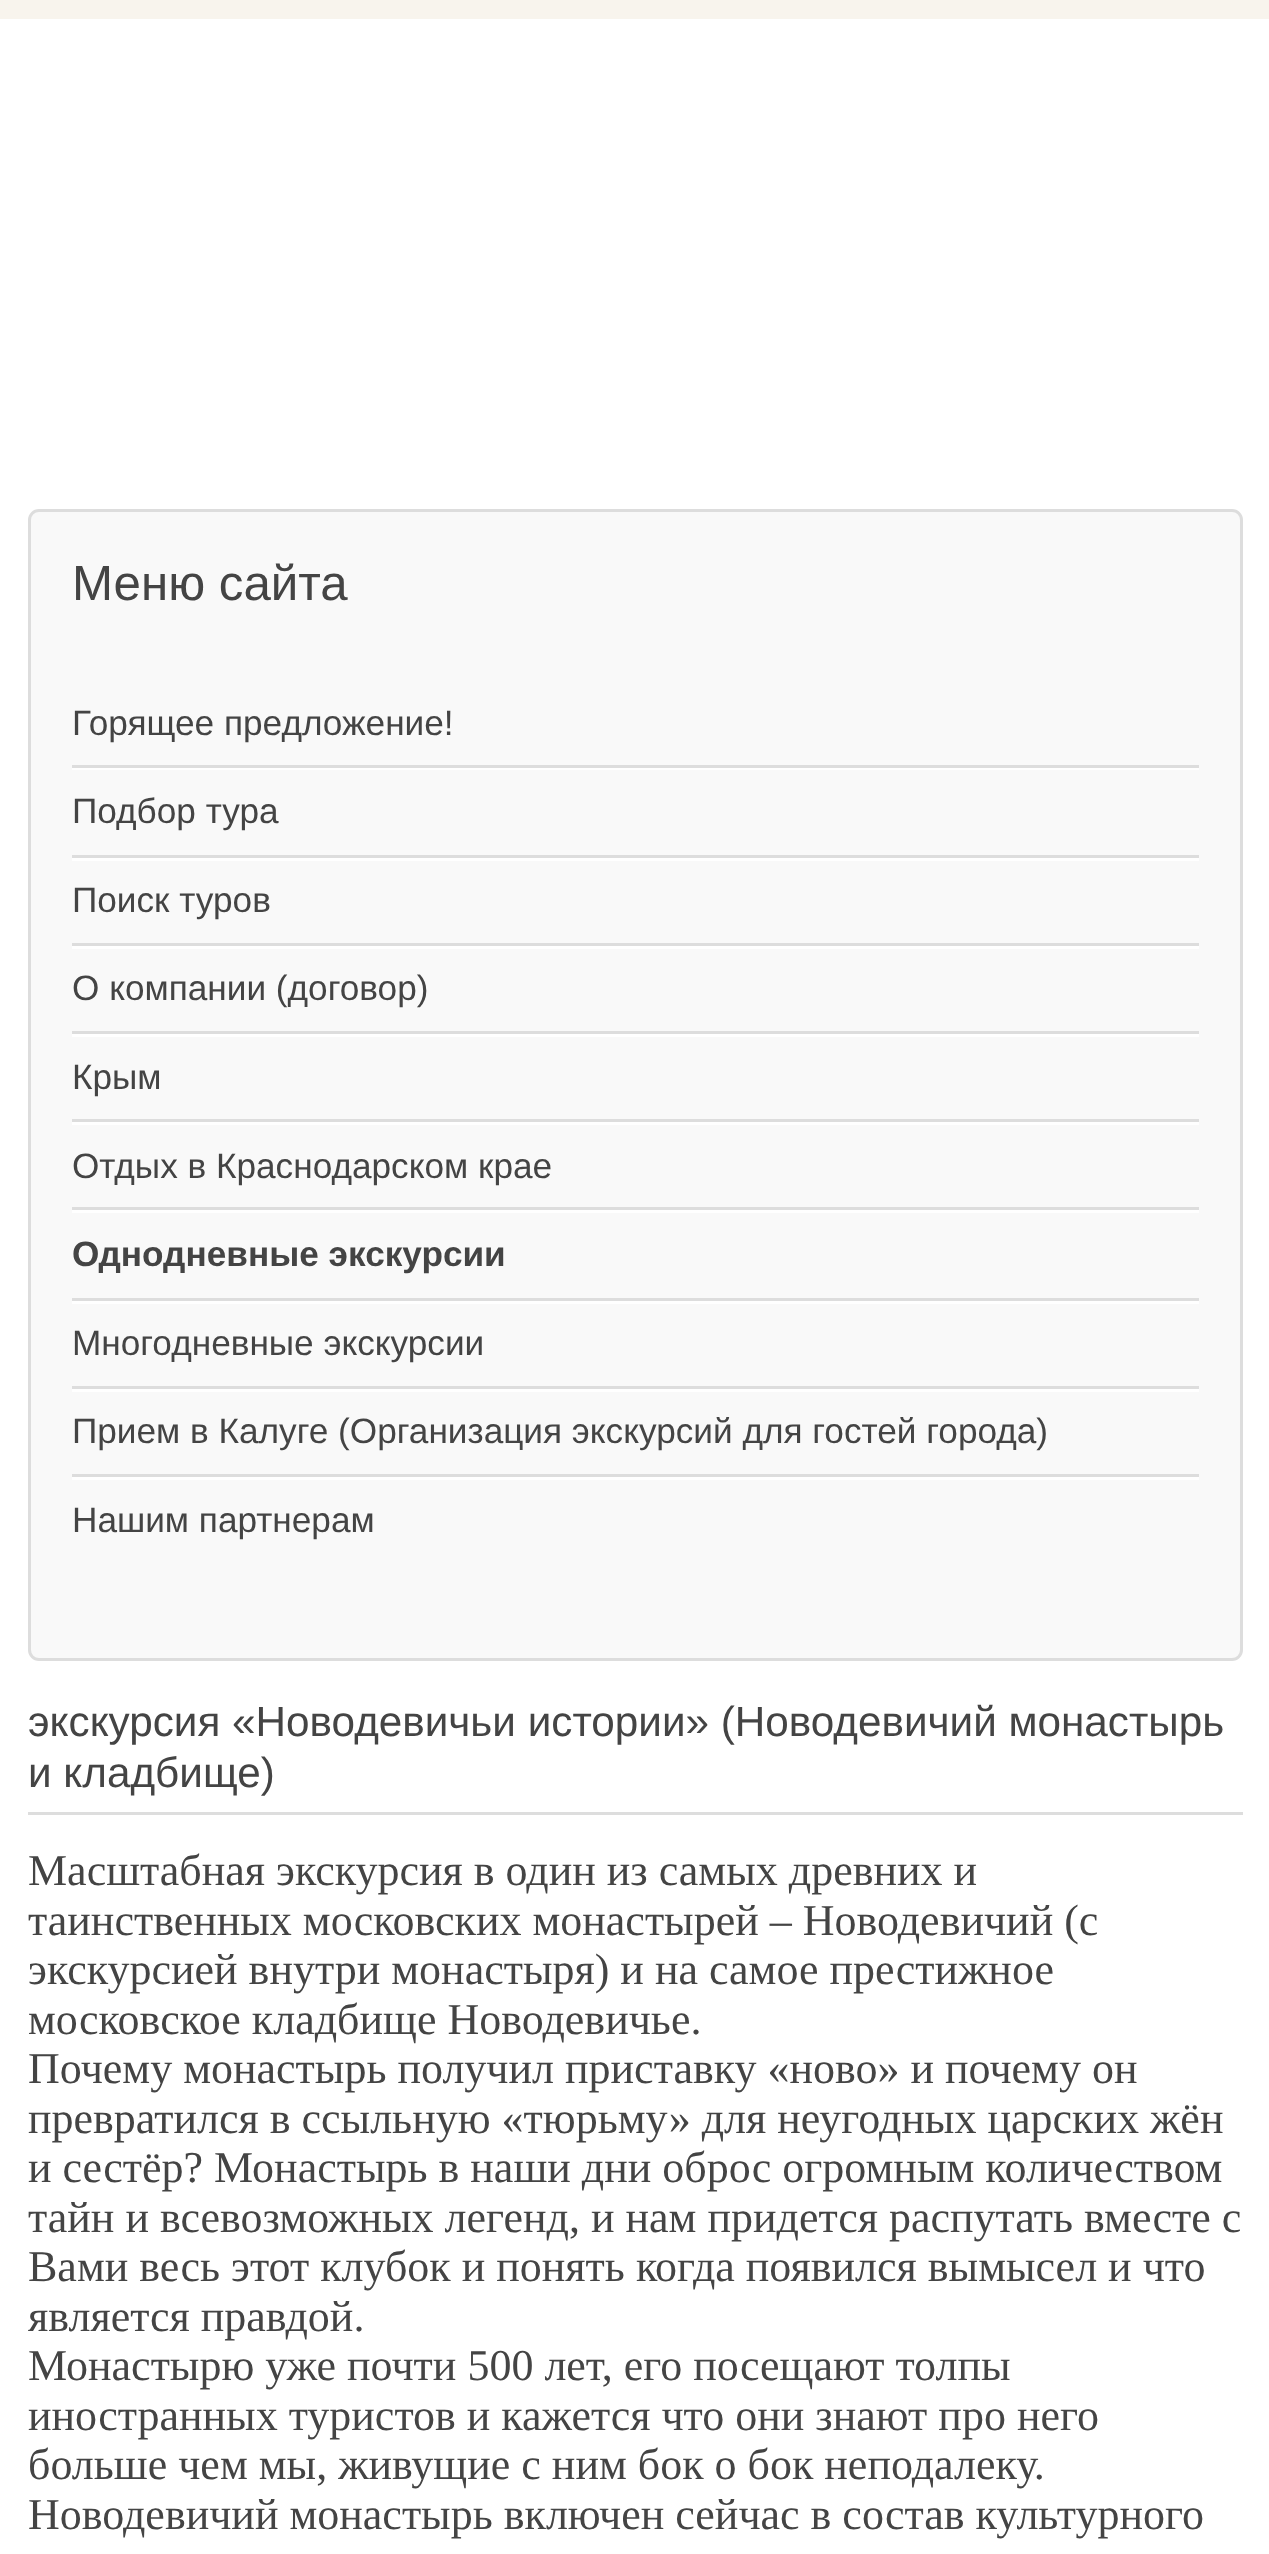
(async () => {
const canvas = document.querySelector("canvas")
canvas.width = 1269
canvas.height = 2554
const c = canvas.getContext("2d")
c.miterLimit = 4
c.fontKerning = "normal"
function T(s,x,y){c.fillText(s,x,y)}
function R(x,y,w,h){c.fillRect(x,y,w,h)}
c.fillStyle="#fff"
R(0,0,1269,2554)
c.fillStyle="#f8f4ed"
R(0,0,1269,19)
c.fillStyle="#f9f9f9"
c.beginPath()
c.roundRect(29.5,510.5,1212,1149,9.5)
c.fill()
c.strokeStyle="#ddd"
c.lineWidth=3
c.stroke()
c.font="49.25px Liberation Sans"
c.fillStyle="#444"
T("Меню сайта",72,600)
c.fillStyle="#fff"
R(72,768,1127,2)
c.fillStyle="#ddd"
R(72,765,1127,3)
c.font="35.2px Liberation Sans"
c.fillStyle="#444"
T("Горящее предложение!",72,735)
c.fillStyle="#fff"
R(72,858,1127,3)
c.fillStyle="#ddd"
R(72,855,1127,3)
c.fillStyle="#444"
T("Подбор тура",72,823)
c.fillStyle="#fff"
R(72,946,1127,3)
c.fillStyle="#ddd"
R(72,943,1127,3)
c.fillStyle="#444"
T("Поиск туров",72,912)
c.fillStyle="#fff"
R(72,1034,1127,3)
c.fillStyle="#ddd"
R(72,1031,1127,3)
c.fillStyle="#444"
T("О компании (договор)",72,1000)
c.fillStyle="#fff"
R(72,1122,1127,3)
c.fillStyle="#ddd"
R(72,1119,1127,3)
c.fillStyle="#444"
T("Крым",72,1089)
c.fillStyle="#fff"
R(72,1210,1127,3)
c.fillStyle="#ddd"
R(72,1207,1127,3)
c.fillStyle="#444"
T("Отдых в Краснодарском крае",72,1178)
c.fillStyle="#fff"
R(72,1301,1127,3)
c.fillStyle="#ddd"
R(72,1298,1127,3)
c.font="bold 35.2px Liberation Sans"
c.fillStyle="#444"
T("Однодневные экскурсии",72,1266)
c.fillStyle="#fff"
R(72,1389,1127,3)
c.fillStyle="#ddd"
R(72,1386,1127,3)
c.font="35.2px Liberation Sans"
c.fillStyle="#444"
T("Многодневные экскурсии",72,1355)
c.fillStyle="#fff"
R(72,1477,1127,3)
c.fillStyle="#ddd"
R(72,1474,1127,3)
c.fillStyle="#444"
T("Прием в Калуге (Организация экскурсий для гостей города)",72,1443)
T("Нашим партнерам",72,1532)
c.fillStyle="#ddd"
R(28,1812,1215,3)
c.font="42.25px Liberation Sans"
c.fillStyle="#444"
T("экскурсия «Новодевичьи истории» (Новодевичий монастырь",28,1736)
T("и кладбище)",28,1787)
c.font="44px Liberation Serif"
T("Масштабная экскурсия в один из самых древних и",28,1885)
T("таинственных московских монастырей – Новодевичий (с",28,1935)
T("экскурсией внутри монастыря) и на самое престижное",28,1984)
T("московское кладбище Новодевичье.",28,2034)
T("Почему монастырь получил приставку «ново» и почему он",28,2083)
T("превратился в ссыльную «тюрьму» для неугодных царских жён",28,2133)
T("и сестёр? Монастырь в наши дни оброс огромным количеством",28,2182)
T("тайн и всевозможных легенд, и нам придется распутать вместе с",28,2232)
T("Вами весь этот клубок и понять когда появился вымысел и что",28,2281)
T("является правдой.",28,2331)
T("Монастырю уже почти 500 лет, его посещают толпы",28,2380)
T("иностранных туристов и кажется что они знают про него",28,2430)
T("больше чем мы, живущие с ним бок о бок неподалеку.",28,2479)
T("Новодевичий монастырь включен сейчас в состав культурного",28,2529)
})()
